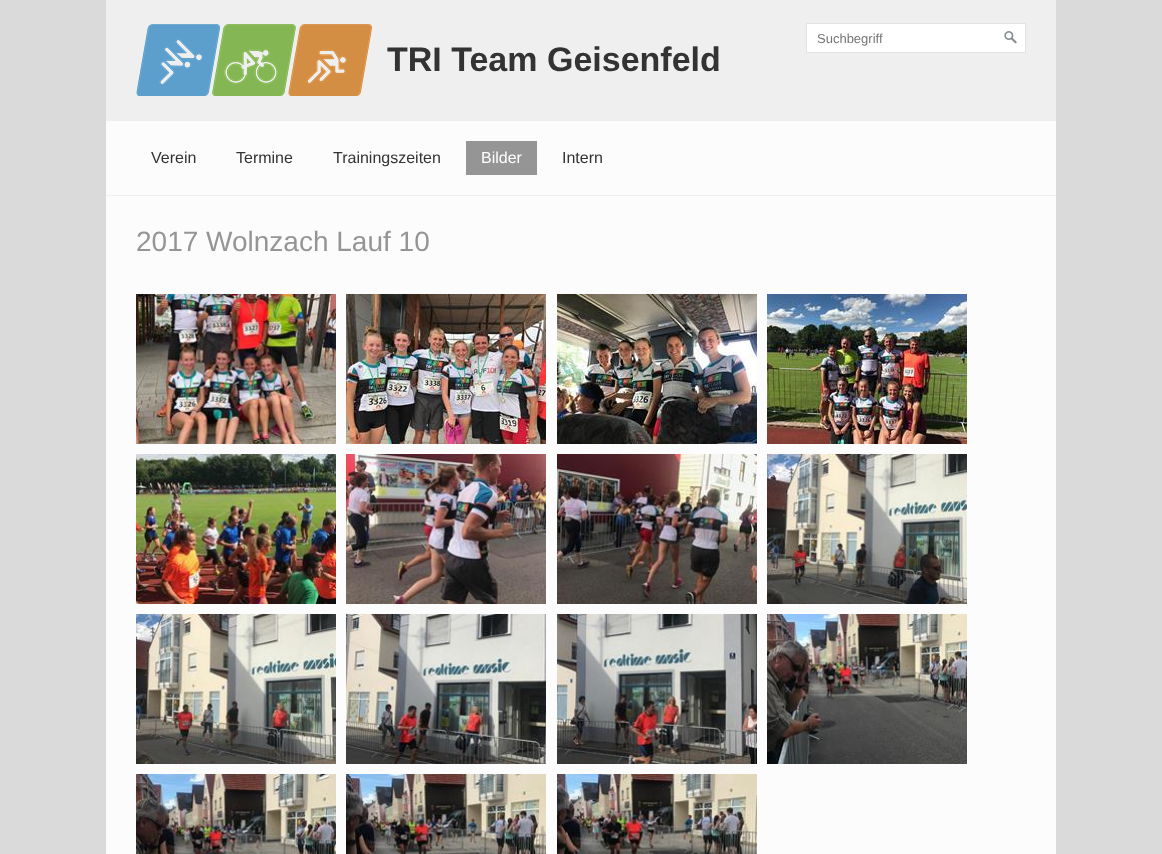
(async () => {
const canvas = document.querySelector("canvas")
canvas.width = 1162
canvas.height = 854
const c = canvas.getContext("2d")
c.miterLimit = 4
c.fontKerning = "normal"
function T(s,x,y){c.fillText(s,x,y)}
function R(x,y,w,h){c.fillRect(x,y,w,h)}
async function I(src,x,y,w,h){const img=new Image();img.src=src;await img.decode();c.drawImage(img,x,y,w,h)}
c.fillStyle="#dadada"
R(0,0,1162,854)
c.fillStyle="#efefef"
R(106,0,950,121)
c.fillStyle="#fff"
c.beginPath()
c.rect(806.5,23.5,219,29)
c.fill()
c.strokeStyle="#e3e3e3"
c.stroke()
c.font="13px Liberation Sans"
c.fillStyle="#757575"
T("Suchbegriff",817,43)
await I("1.png",1004,31,13,13)
await I("2.png",136,24,236,72)
c.font="bold 34px Liberation Sans"
c.fillStyle="#333"
T("TRI Team Geisenfeld",387,71)
c.fillStyle="#fcfcfc"
R(106,121,950,74)
c.fillStyle="#efefef"
R(106,195,950,1)
c.font="16px Liberation Sans"
c.fillStyle="#333"
T("Verein",151,163)
T("Termine",236,163)
T("Trainingszeiten",333,163)
c.fillStyle="#959595"
R(466,141,71,34)
c.fillStyle="#fff"
T("Bilder",481,163)
c.fillStyle="#333"
T("Intern",562,163)
c.fillStyle="#fcfcfc"
R(106,196,950,658)
c.font="28px Liberation Sans"
c.fillStyle="#959595"
T("2017 Wolnzach Lauf 10",136,251)
await I("3.png",136,294,200,150)
await I("4.png",346,294,200,150)
await I("5.png",557,294,200,150)
await I("6.png",767,294,200,150)
await I("7.png",136,454,200,150)
await I("8.png",346,454,200,150)
await I("9.png",557,454,200,150)
await I("10.png",767,454,200,150)
await I("11.png",136,614,200,150)
await I("12.png",346,614,200,150)
await I("13.png",557,614,200,150)
await I("14.png",767,614,200,150)
await I("15.png",136,774,200,80)
await I("16.png",346,774,200,80)
await I("17.png",557,774,200,80)
})()
